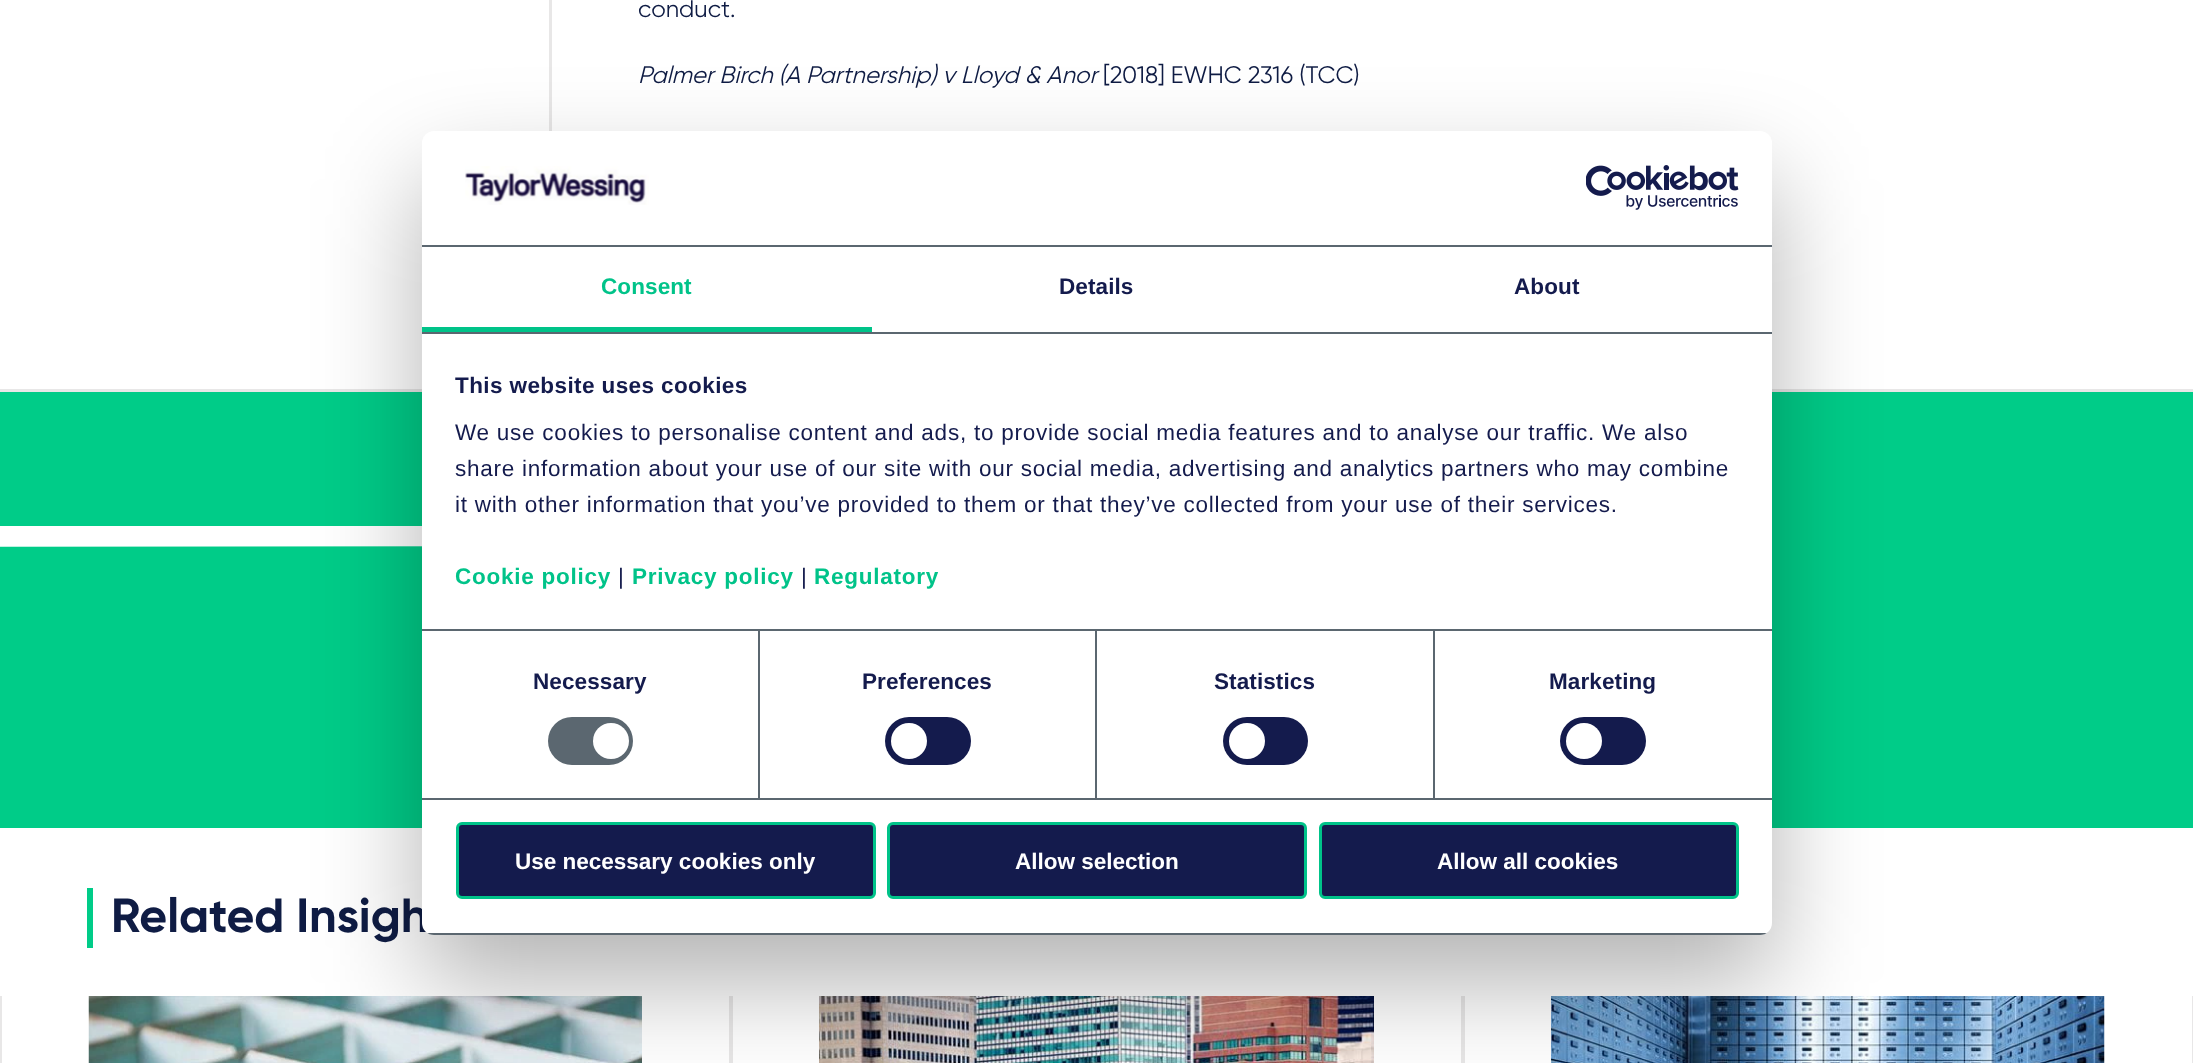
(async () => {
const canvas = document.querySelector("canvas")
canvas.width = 2193
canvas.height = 1063
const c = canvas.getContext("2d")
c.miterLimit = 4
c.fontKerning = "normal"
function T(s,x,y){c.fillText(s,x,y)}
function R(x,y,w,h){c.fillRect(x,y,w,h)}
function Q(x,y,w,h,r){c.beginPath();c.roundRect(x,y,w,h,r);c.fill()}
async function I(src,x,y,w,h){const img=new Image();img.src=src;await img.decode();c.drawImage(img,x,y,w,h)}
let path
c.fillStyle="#fff"
R(0,0,2193,1063)
c.fillStyle="#e8e7e7"
R(0,389,2193,3)
R(549,0,3,131)
c.font="24px 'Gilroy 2'"
c.fillStyle="#0f1c44"
T("conduct.",638,17)
c.font="italic 24px Gilroy"
T("Palmer Birch (A Partnership) v Lloyd & Anor",638,83)
c.font="24px 'Gilroy 2'"
T("[2018] EWHC 2316 (TCC)",1103,83)
c.fillStyle="#0c8"
R(0,392,2193,436)
c.fillStyle="#fff"
path = new Path2D("M643 526h52l-34-32l14-12l56 54l-56 55l-14-12l34-33l-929 1v-21z")
c.fill(path,"evenodd")
c.fillStyle="#0c8"
R(87,888,6,60)
c.font="48px Gilroy"
c.fillStyle="#0f1c44"
T("Related Insigh",111,932)
c.fillStyle="#e8e7e7"
R(729,996,4,67)
R(0,996,2,67)
await I("1.png",88,996,554,67)
R(1461,996,4,67)
await I("2.png",819,996,555,67)
R(2192,996,1,67)
await I("3.png",1551,996,554,67)
c.fillStyle="#0000004d"
c.filter="blur(51px)"
c.beginPath()
c.roundRect(422,179,1350,804,12)
c.fill()
c.filter="none"
c.fillStyle="#fff"
Q(422,131,1350,804,12)
c.fillStyle="#5b6770"
R(422,245,1350,2)
await I("4.png",465,166,184,39)
await I("5.png",1586,165,153,45)
R(422,332,1350,2)
c.fillStyle="#00c389"
R(422,327,450,5)
c.letterSpacing="0.1px"
c.font="bold 22.5px Liberation Sans"
T("Consent",601,294)
c.fillStyle="#141b4d"
T("Details",1059,294)
T("About",1514,294)
c.fillStyle="#5b6770"
R(758,630,2,168)
R(1095,630,2,168)
R(1433,630,2,168)
R(422,629,1350,2)
c.letterSpacing="0.4px"
c.fillStyle="#141b4d"
T("This website uses cookies",455,393)
c.letterSpacing="0.75px"
c.font="22.5px Liberation Sans"
T("We use cookies to personalise content and ads, to provide social media features and to analyse our traffic. We also",455,440)
T("share information about your use of our site with our social media, advertising and analytics partners who may combine",455,476)
T("it with other information that you’ve provided to them or that they’ve collected from your use of their services.",455,512)
c.font="bold 22.5px Liberation Sans"
c.fillStyle="#00c389"
T("Cookie policy",455,584)
c.font="22.5px Liberation Sans"
c.fillStyle="#141b4d"
T("|",618,584)
c.font="bold 22.5px Liberation Sans"
c.fillStyle="#00c389"
T("Privacy policy",632,584)
c.font="22.5px Liberation Sans"
c.fillStyle="#141b4d"
T("|",801,584)
c.font="bold 22.5px Liberation Sans"
c.fillStyle="#00c389"
T("Regulatory",814,584)
c.fillStyle="#5b6770"
R(422,798,1350,2)
c.letterSpacing="0.1px"
c.fillStyle="#141b4d"
T("Necessary",533,689)
c.fillStyle="#5b6770"
Q(548,717,85,48,24)
c.fillStyle="#fff"
c.beginPath()
c.arc(611,741,18,0,7)
c.fill()
c.fillStyle="#141b4d"
T("Preferences",862,689)
Q(885,717,86,48,24)
c.fillStyle="#fff"
c.beginPath()
c.arc(909,741,18,0,7)
c.fill()
c.fillStyle="#141b4d"
T("Statistics",1214,689)
Q(1223,717,85,48,24)
c.fillStyle="#fff"
c.beginPath()
c.arc(1247,741,18,0,7)
c.fill()
c.fillStyle="#141b4d"
T("Marketing",1549,689)
Q(1560,717,86,48,24)
c.fillStyle="#fff"
c.beginPath()
c.arc(1584,741,18,0,7)
c.fill()
c.save()
c.beginPath()
c.roundRect(422,131,1350,804,12)
c.clip()
c.fillStyle="#5b6770"
R(422,933,1350,2)
c.restore()
c.fillStyle="#141b4d"
c.beginPath()
c.roundRect(457.5,823.5,417,74,4.5)
c.fill()
c.strokeStyle="#00c389"
c.lineWidth=3
c.stroke()
c.letterSpacing="0px"
c.fillStyle="#fff"
T("Use necessary cookies only",515,869)
c.fillStyle="#141b4d"
c.beginPath()
c.roundRect(888.5,823.5,417,74,4.5)
c.fill()
c.stroke()
c.fillStyle="#fff"
T("Allow selection",1015,869)
c.fillStyle="#141b4d"
c.beginPath()
c.roundRect(1320.5,823.5,417,74,4.5)
c.fill()
c.stroke()
c.fillStyle="#fff"
T("Allow all cookies",1437,869)
})()
